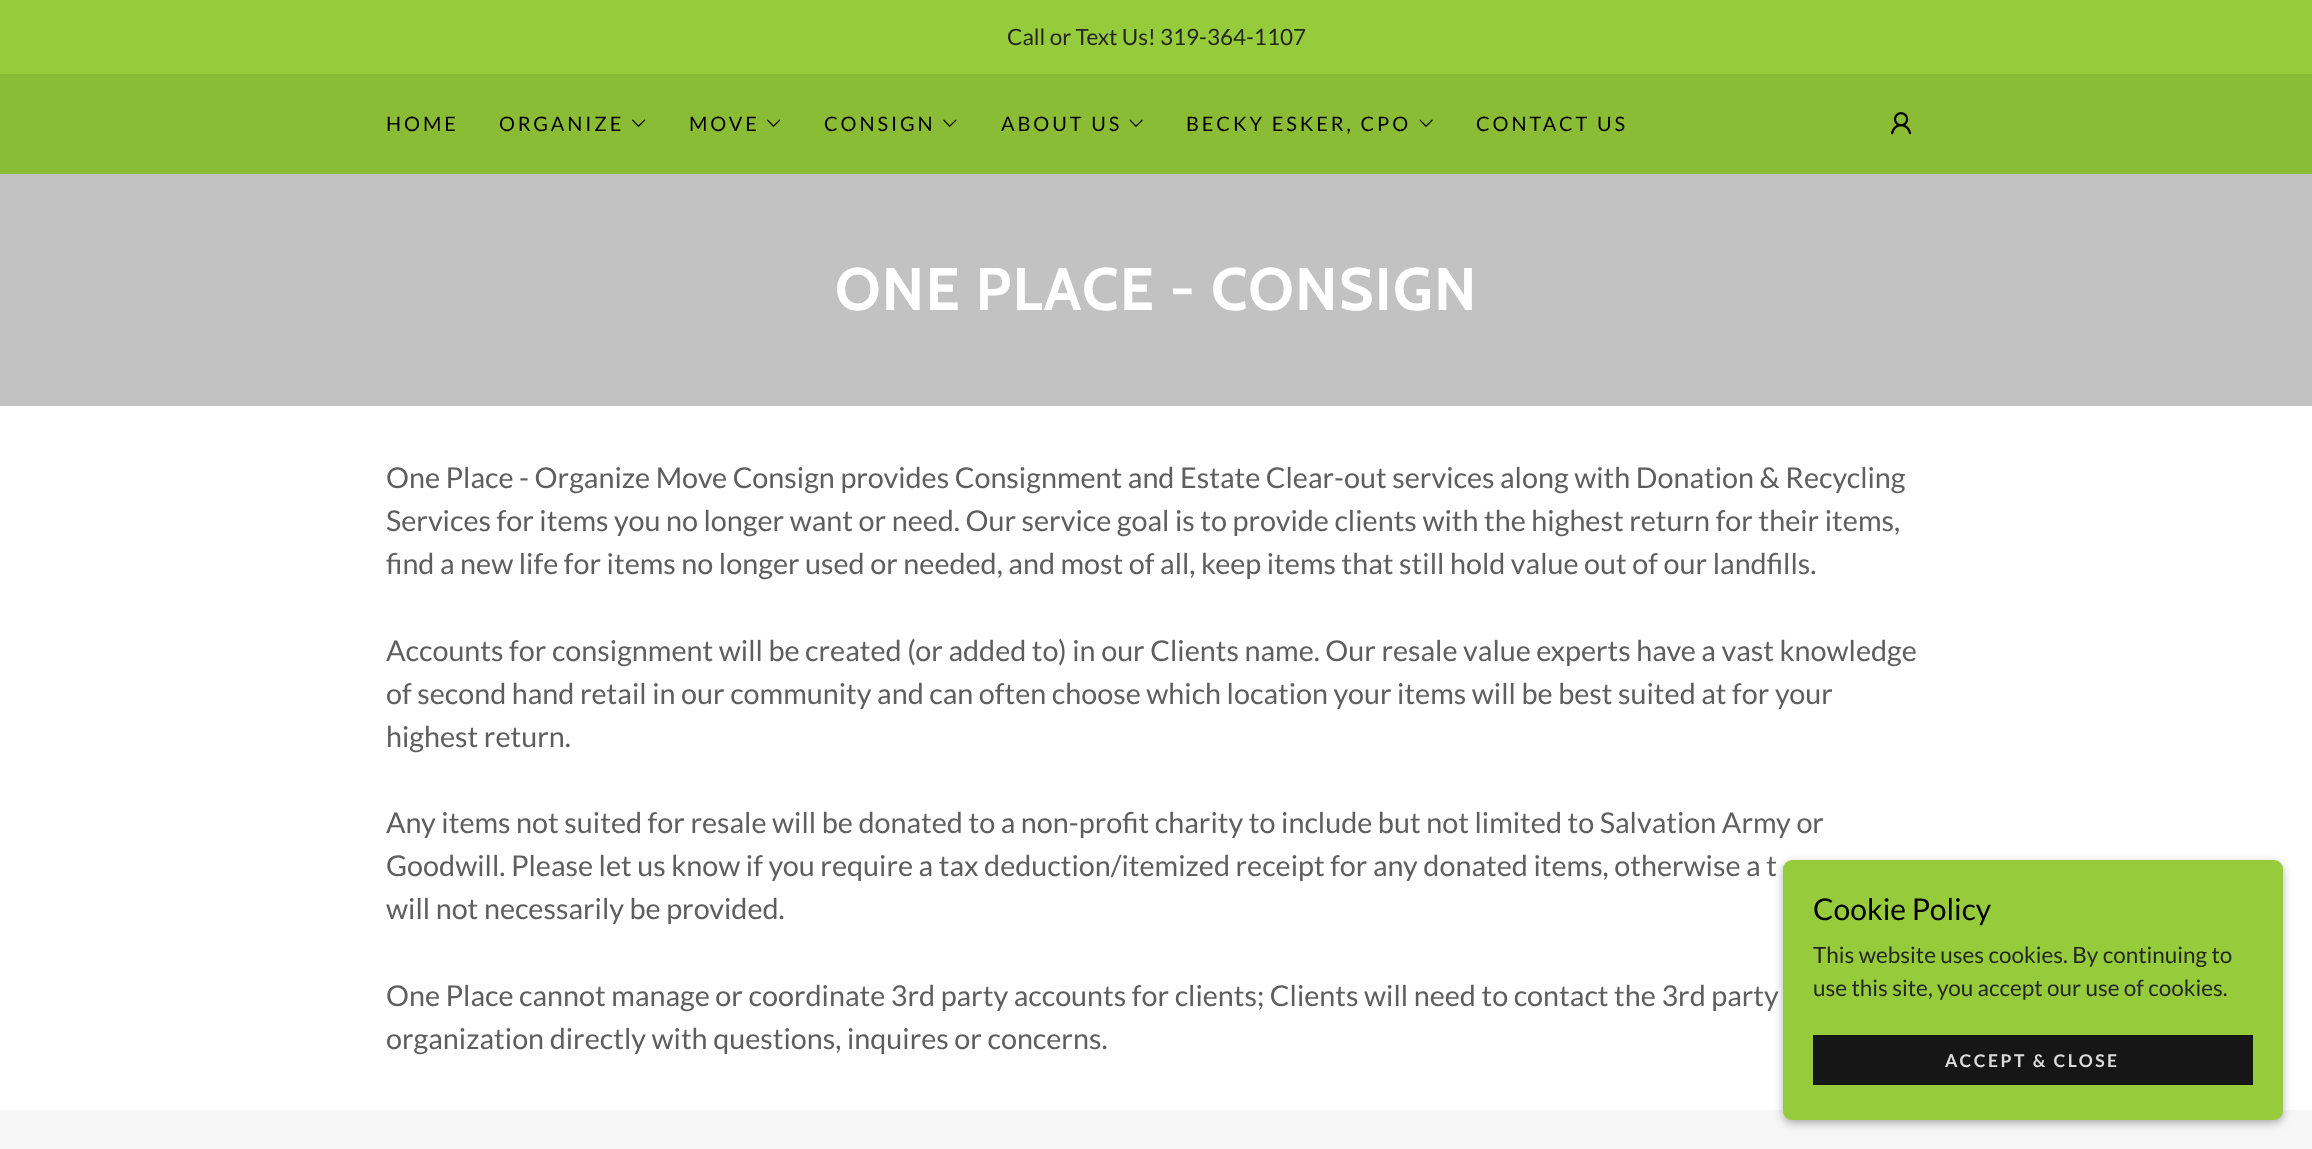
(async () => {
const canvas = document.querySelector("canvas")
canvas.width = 2312
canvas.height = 1149
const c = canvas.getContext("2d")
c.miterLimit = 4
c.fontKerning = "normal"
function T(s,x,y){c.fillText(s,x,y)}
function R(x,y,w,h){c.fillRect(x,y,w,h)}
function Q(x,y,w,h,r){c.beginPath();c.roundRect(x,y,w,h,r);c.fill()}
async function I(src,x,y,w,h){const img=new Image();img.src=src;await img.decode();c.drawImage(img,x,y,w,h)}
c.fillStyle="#96cb3b"
R(0,0,2312,1149)
c.font="22.5px Lato"
c.fillStyle="#252822"
T("Call or Text Us! 319-364-1107",1007,45)
c.fillStyle="#8bbc36"
R(0,74,2312,100)
c.letterSpacing="2.9px"
c.font="20px Lato"
c.fillStyle="#000"
T("HOME",386,131)
T("ORGANIZE",499,131)
await I("1.png",632,119,14,8)
T("MOVE",689,131)
await I("1.png",767,119,14,8)
T("CONSIGN",824,131)
await I("2.png",943,119,14,8)
T("ABOUT US",1001,131)
await I("3.png",1129,119,14,8)
T("BECKY ESKER, CPO",1186,131)
await I("3.png",1419,119,14,8)
T("CONTACT US",1476,131)
await I("4.png",1891,112,21,23)
c.fillStyle="#c2c2c2"
R(0,174,2312,232)
c.letterSpacing="1.25px"
c.font="bold 60px Cabin"
c.fillStyle="#fff"
T("ONE PLACE - CONSIGN",835,310)
R(0,406,2312,704)
c.letterSpacing="0px"
c.font="28.75px Lato"
c.fillStyle="#5e5e5e"
T("One Place - Organize Move Consign provides Consignment and Estate Clear-out services along with Donation & Recycling",386,488)
T("Services for items you no longer want or need. Our service goal is to provide clients with the highest return for their items,",386,531)
T("find a new life for items no longer used or needed, and most of all, keep items that still hold value out of our landfills.",386,574)
T("Accounts for consignment will be created (or added to) in our Clients name. Our resale value experts have a vast knowledge",386,661)
T("of second hand retail in our community and can often choose which location your items will be best suited at for your",386,704)
T("highest return.",386,747)
T("Any items not suited for resale will be donated to a non-profit charity to include but not limited to Salvation Army or",386,833)
T("Goodwill. Please let us know if you require a tax deduction/itemized receipt for any donated items, otherwise a t",386,876)
T("will not necessarily be provided.",386,919)
T("One Place cannot manage or coordinate 3rd party accounts for clients; Clients will need to contact the 3rd party",386,1006)
T("organization directly with questions, inquires or concerns.",386,1049)
c.fillStyle="#f6f6f6"
R(0,1110,2312,39)
c.fillStyle="#0000004d"
c.filter="blur(4px)"
c.beginPath()
c.roundRect(1783,863,500,260,9)
c.fill()
c.filter="none"
c.fillStyle="#96cb3b"
Q(1783,860,500,260,9)
c.font="30px Lato"
c.fillStyle="#000"
T("Cookie Policy",1813,920)
c.font="22.5px Lato"
c.fillStyle="#252822"
T("This website uses cookies. By continuing to",1813,963)
T("use this site, you accept our use of cookies.",1813,996)
c.fillStyle="#161616"
R(1813,1035,440,50)
c.letterSpacing="2.5px"
c.font="bold 17.5px Lato"
c.fillStyle="#dbdbdb"
T("ACCEPT & CLOSE",1945,1067)
})()
